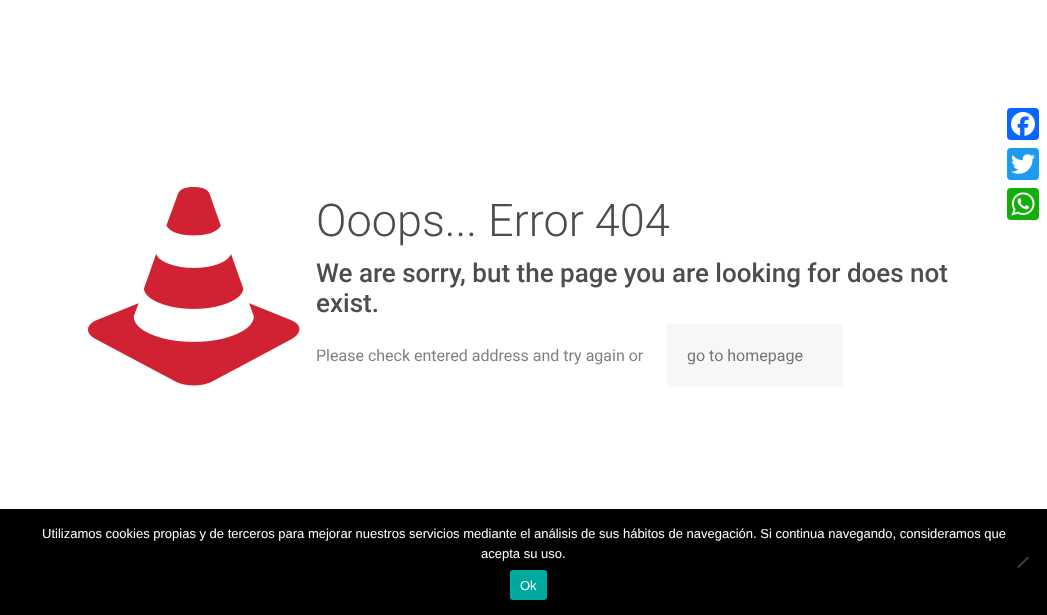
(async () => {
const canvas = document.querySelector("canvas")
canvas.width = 1047
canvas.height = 615
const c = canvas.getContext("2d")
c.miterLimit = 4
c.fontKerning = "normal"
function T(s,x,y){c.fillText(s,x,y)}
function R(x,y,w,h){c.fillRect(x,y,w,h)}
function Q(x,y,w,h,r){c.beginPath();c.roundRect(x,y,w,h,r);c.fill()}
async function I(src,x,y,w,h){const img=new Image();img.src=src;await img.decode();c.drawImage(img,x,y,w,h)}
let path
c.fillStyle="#fff"
R(0,0,1047,615)
c.fillStyle="#0866ff"
Q(1007,108,32,32,4)
await I("1.png",1011,112,24,24)
c.fillStyle="#1d9bf0"
Q(1007,148,32,32,4)
await I("2.png",1011,154,24,20)
c.fillStyle="#12af0a"
Q(1007,188,32,32,4)
await I("3.png",1011,192,24,24)
await I("4.png",88,187,212,199)
c.font="300 45px Roboto"
c.fillStyle="#4d4d4d"
T("Ooops... Error 404",316,236)
c.font="500 26px Roboto"
T("We are sorry, but the page you are looking for does not",316,282)
T("exist.",316,312)
c.font="16px Roboto"
c.fillStyle="#808080"
T("Please check entered address and try again or",316,361)
c.fillStyle="#f7f7f7"
R(667,324,176,63)
c.fillStyle="#747474"
T("go to homepage",687,361)
c.fillStyle="#000"
R(0,509,1047,106)
c.font="13px Liberation Sans"
c.fillStyle="#fff"
T("Utilizamos cookies propias y de terceros para mejorar nuestros servicios mediante el análisis de sus hábitos de navegación. Si continua navegando, consideramos que",42,538)
T("acepta su uso.",481,558)
c.fillStyle="#404040"
path = new Path2D("M1027.5 556.5l1.5 1.5l-10.5 10.5l-1.5-1.5z")
c.fill(path)
c.save()
c.beginPath()
c.rect(1012,552,20,20)
c.clip()
c.fillStyle="#00000012"
path = new Path2D("M1008 562l14-14l14 14l-14 14z")
c.fill(path)
c.restore()
c.fillStyle="#00a99d"
Q(510,570,37,30,3)
c.fillStyle="#fff"
T("Ok",520,590)
})()
